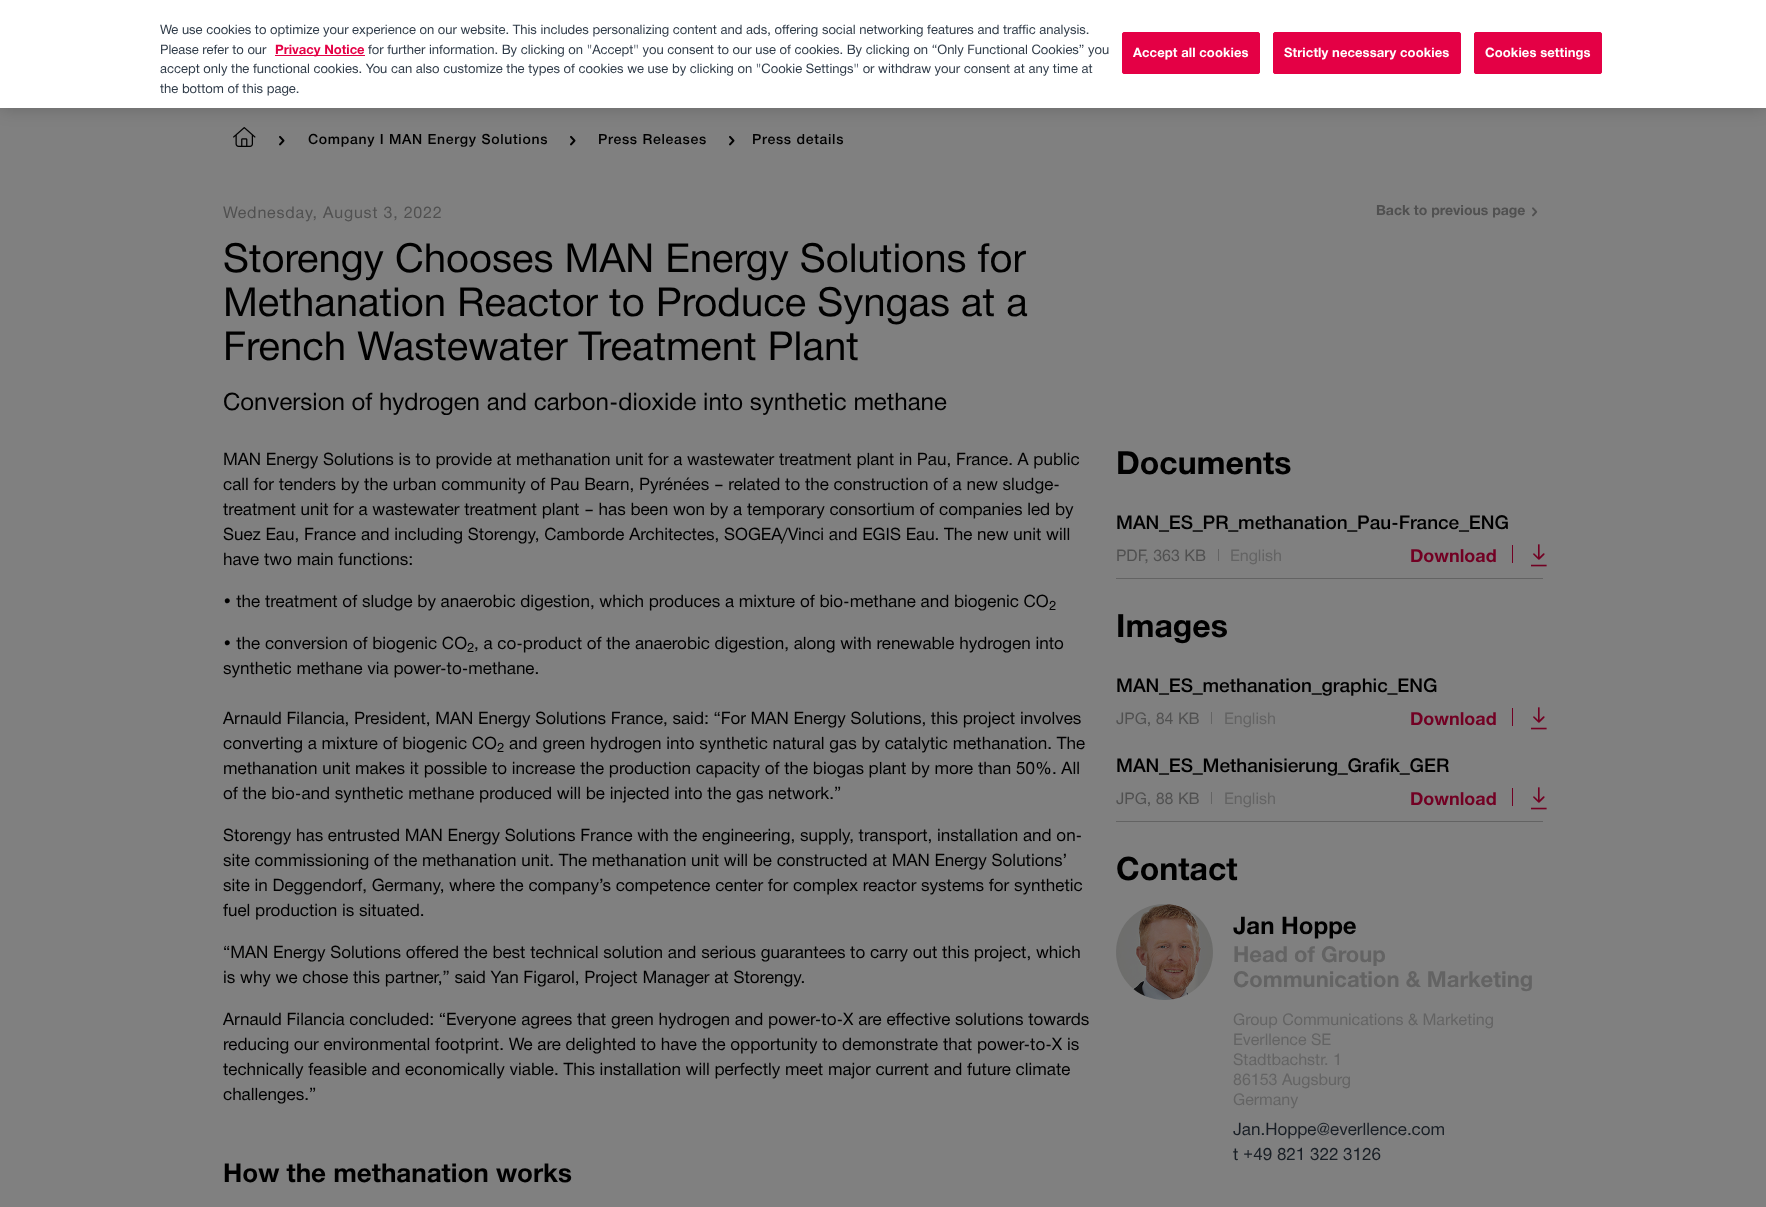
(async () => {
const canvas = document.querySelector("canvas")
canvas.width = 1766
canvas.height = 1207
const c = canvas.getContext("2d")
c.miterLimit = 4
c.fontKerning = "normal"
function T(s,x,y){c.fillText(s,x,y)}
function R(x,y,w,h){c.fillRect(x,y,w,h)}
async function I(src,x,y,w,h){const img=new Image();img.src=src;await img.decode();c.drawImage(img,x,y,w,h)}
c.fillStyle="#808080"
R(0,0,1766,1207)
await I("1.png",233,127,23,20)
await I("2.png",279,135,6,11)
await I("2.png",570,135,6,11)
await I("2.png",729,135,6,11)
c.fillStyle="#00000033"
c.filter="blur(9px)"
c.beginPath()
c.rect(0,0,1766,108)
c.fill()
c.filter="none"
c.fillStyle="#fff"
R(0,0,1766,108)
c.font="13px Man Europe"
c.fillStyle="#303c49"
T("We use cookies to optimize your experience on our website. This includes personalizing content and ads, offering social networking features and traffic analysis.",160,34)
T("Please refer to our",160,54)
c.fillStyle="#e40045"
R(275,55,90,1)
c.font="bold 13px Man Europe"
T("Privacy Notice",275,54)
c.font="13px Man Europe"
c.fillStyle="#303c49"
T("for further information. By clicking on \"Accept\" you consent to our use of cookies. By clicking on “Only Functional Cookies” you",368,54)
T("accept only the functional cookies. You can also customize the types of cookies we use by clicking on \"Cookie Settings\" or withdraw your consent at any time at",160,73)
T("the bottom of this page.",160,93)
c.fillStyle="#e40045"
c.beginPath()
c.roundRect(1122.5,32.5,137,41,1.5)
c.fill()
c.strokeStyle="#e40045"
c.stroke()
c.letterSpacing="0.1px"
c.font="bold 13px Man Europe"
c.fillStyle="#fff"
T("Accept all cookies",1133,57)
c.fillStyle="#e40045"
c.beginPath()
c.roundRect(1273.5,32.5,187,41,1.5)
c.fill()
c.stroke()
c.fillStyle="#fff"
T("Strictly necessary cookies",1284,57)
c.fillStyle="#e40045"
c.beginPath()
c.roundRect(1474.5,32.5,127,41,1.5)
c.fill()
c.stroke()
c.fillStyle="#fff"
T("Cookies settings",1485,57)
c.letterSpacing="0.7px"
c.font="500 14px Man Europe"
c.fillStyle="#000"
T("Company I MAN Energy Solutions",308,144)
T("Press Releases",598,144)
T("Press details",752,144)
c.letterSpacing="0.8px"
c.font="16px Man Europe"
c.fillStyle="#505050"
T("Wednesday, August 3, 2022",223,218)
c.letterSpacing="0px"
c.font="40px Man Europe"
c.fillStyle="#000"
T("Storengy Chooses MAN Energy Solutions for",223,272)
T("Methanation Reactor to Produce Syngas at a",223,316)
T("French Wastewater Treatment Plant",223,360)
c.font="24px Man Europe"
T("Conversion of hydrogen and carbon-dioxide into synthetic methane",223,410)
c.font="bold 14px Man Europe"
c.fillStyle="#505050"
T("Back to previous page",1376,215)
await I("3.png",1532,207,6,10)
c.font="17px Man Europe"
c.fillStyle="#000"
T("MAN Energy Solutions is to provide at methanation unit for a wastewater treatment plant in Pau, France. A public",223,465)
T("call for tenders by the urban community of Pau Bearn, Pyrénées – related to the construction of a new sludge-",223,490)
T("treatment unit for a wastewater treatment plant – has been won by a temporary consortium of companies led by",223,515)
T("Suez Eau, France and including Storengy, Camborde Architectes, SOGEA/Vinci and EGIS Eau. The new unit will",223,540)
T("have two main functions:",223,565)
T("• the treatment of sludge by anaerobic digestion, which produces a mixture of bio-methane and biogenic CO",223,607)
c.font="13px Man Europe"
T("2",1049,610)
c.font="17px Man Europe"
T("• the conversion of biogenic CO",223,649)
c.font="13px Man Europe"
T("2",467,652)
c.font="17px Man Europe"
T(", a co-product of the anaerobic digestion, along with renewable hydrogen into",474,649)
T("synthetic methane via power-to-methane.",223,674)
T("Arnauld Filancia, President, MAN Energy Solutions France, said: “For MAN Energy Solutions, this project involves",223,724)
T("converting a mixture of biogenic CO",223,749)
c.font="13px Man Europe"
T("2",497,752)
c.font="17px Man Europe"
T("and green hydrogen into synthetic natural gas by catalytic methanation. The",509,749)
T("methanation unit makes it possible to increase the production capacity of the biogas plant by more than 50%. All",223,774)
T("of the bio-and synthetic methane produced will be injected into the gas network.”",223,799)
T("Storengy has entrusted MAN Energy Solutions France with the engineering, supply, transport, installation and on-",223,841)
T("site commissioning of the methanation unit. The methanation unit will be constructed at MAN Energy Solutions’",223,866)
T("site in Deggendorf, Germany, where the company’s competence center for complex reactor systems for synthetic",223,891)
T("fuel production is situated.",223,916)
T("“MAN Energy Solutions offered the best technical solution and serious guarantees to carry out this project, which",223,958)
T("is why we chose this partner,” said Yan Figarol, Project Manager at Storengy.",223,983)
T("Arnauld Filancia concluded: “Everyone agrees that green hydrogen and power-to-X are effective solutions towards",223,1025)
T("reducing our environmental footprint. We are delighted to have the opportunity to demonstrate that power-to-X is",223,1050)
T("technically feasible and economically viable. This installation will perfectly meet major current and future climate",223,1075)
T("challenges.”",223,1100)
c.font="bold 26px Man Europe"
T("How the methanation works",223,1182)
c.fillStyle="#636363"
R(1116,578,427,1)
c.font="bold 32px Man Europe"
c.fillStyle="#000"
T("Documents",1116,474)
c.font="500 19px Man Europe"
T("MAN_ES_PR_methanation_Pau-France_ENG",1116,529)
c.font="16px Man Europe"
c.fillStyle="#505050"
T("PDF, 363 KB",1116,561)
c.fillStyle="#636363"
R(1218,549,1,12)
T("English",1230,561)
c.font="bold 18px Man Europe"
c.fillStyle="#720023"
T("Download",1410,562)
R(1512,545,1,18)
await I("4.png",1531,544,16,23)
c.fillStyle="#636363"
R(1116,821,427,1)
c.font="bold 32px Man Europe"
c.fillStyle="#000"
T("Images",1116,637)
c.font="500 19px Man Europe"
T("MAN_ES_methanation_graphic_ENG",1116,692)
c.font="16px Man Europe"
c.fillStyle="#505050"
T("JPG, 84 KB",1116,724)
c.fillStyle="#636363"
R(1211,712,1,12)
T("English",1224,724)
c.font="bold 18px Man Europe"
c.fillStyle="#720023"
T("Download",1410,725)
R(1512,708,1,18)
await I("4.png",1531,707,16,23)
c.font="500 19px Man Europe"
c.fillStyle="#000"
T("MAN_ES_Methanisierung_Grafik_GER",1116,772)
c.font="16px Man Europe"
c.fillStyle="#505050"
T("JPG, 88 KB",1116,804)
c.fillStyle="#636363"
R(1211,792,1,12)
T("English",1224,804)
c.font="bold 18px Man Europe"
c.fillStyle="#720023"
T("Download",1410,805)
R(1512,788,1,18)
await I("4.png",1531,787,16,23)
c.font="bold 32px Man Europe"
c.fillStyle="#000"
T("Contact",1116,880)
await I("5.png",1116,904,97,96)
c.font="bold 24px Man Europe"
T("Jan Hoppe",1233,934)
c.font="bold 22px Man Europe"
c.fillStyle="#636363"
T("Head of Group",1233,962)
T("Communication & Marketing",1233,987)
c.font="16px Man Europe"
T("Group Communications & Marketing",1233,1025)
T("Everllence SE",1233,1045)
T("Stadtbachstr. 1",1233,1065)
T("86153 Augsburg",1233,1085)
T("Germany",1233,1105)
c.font="17px Man Europe"
c.fillStyle="#181e25"
T("Jan.Hoppe@everllence.com",1233,1135)
T("t +49 821 322 3126",1233,1160)
})()
